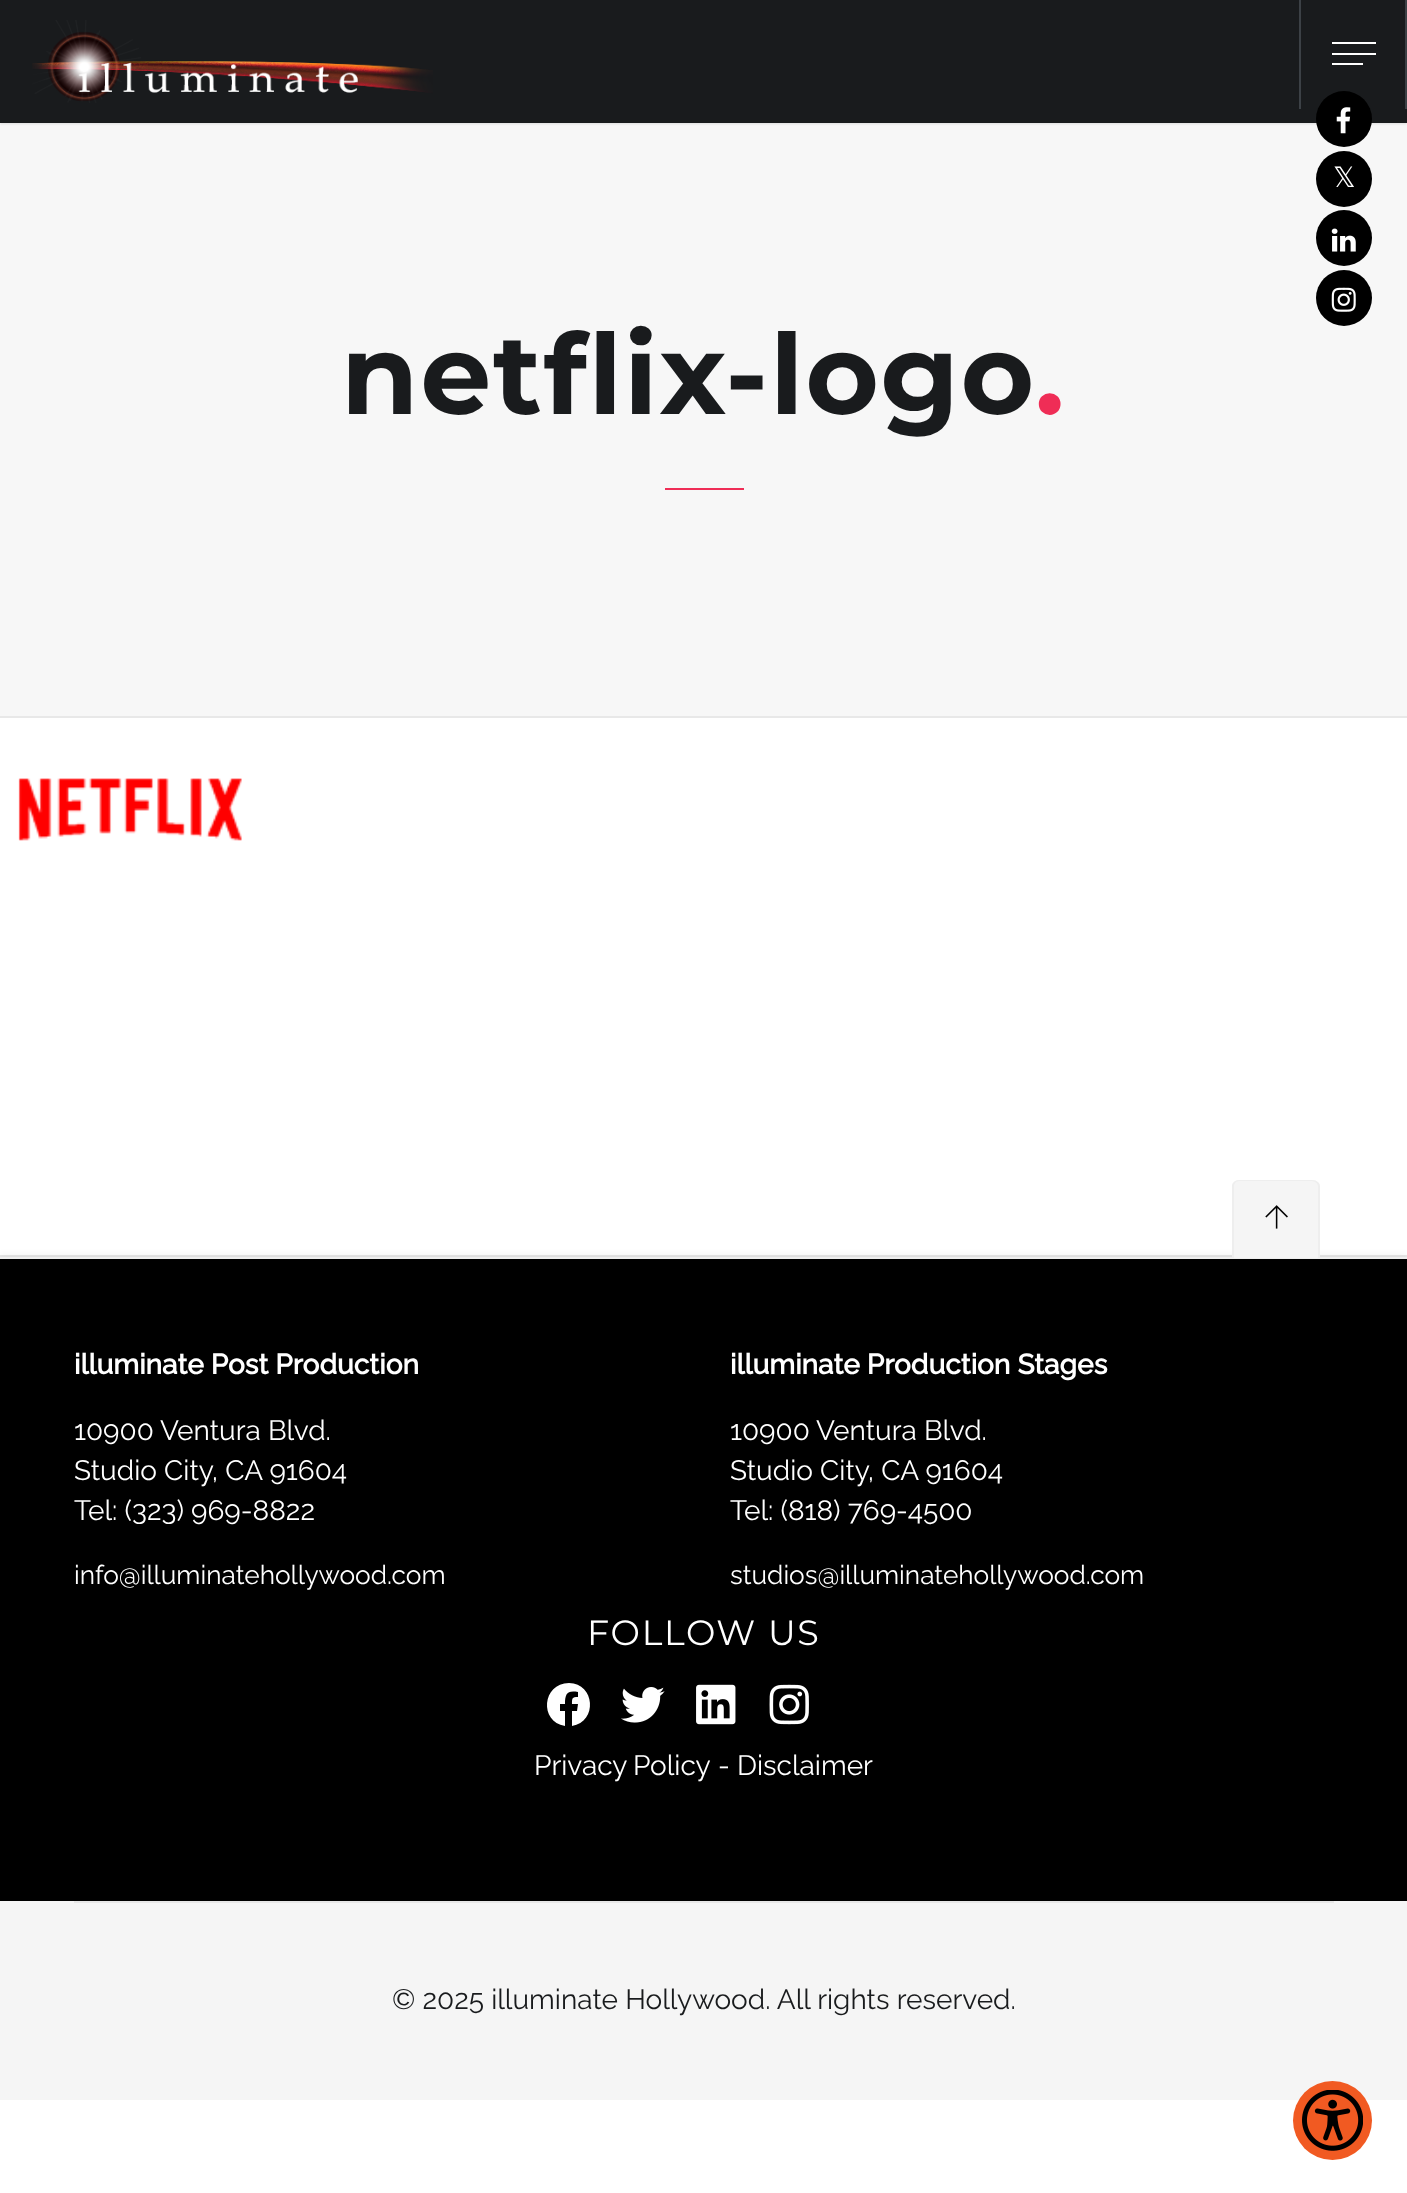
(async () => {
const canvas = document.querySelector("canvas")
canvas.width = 1407
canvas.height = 2193
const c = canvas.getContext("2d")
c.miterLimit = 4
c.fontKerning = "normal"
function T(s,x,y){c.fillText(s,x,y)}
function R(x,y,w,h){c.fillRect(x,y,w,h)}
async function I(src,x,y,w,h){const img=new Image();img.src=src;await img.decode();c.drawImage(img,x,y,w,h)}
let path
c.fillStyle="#fff"
R(0,0,1407,2193)
c.fillStyle="#f7f7f7"
R(0,123,1407,593)
c.fillStyle="#0000001a"
c.filter="blur(1px)"
c.beginPath()
c.rect(0,2,1407,122)
c.fill()
c.filter="none"
c.fillStyle="#191b1d"
R(0,0,1407,123)
await I("1.png",32,20,401,83)
c.fillStyle="#3c4146"
R(1405,0,2,109)
R(1299,0,2,109)
c.fillStyle="#fff"
R(1332,42,44,2)
R(1332,53,44,2)
R(1332,63,31,2)
c.fillStyle="#000"
c.beginPath()
c.arc(1344,119,28,0,7)
c.fill()
await I("2.png",1336,107,15,27)
c.beginPath()
c.arc(1344,179,28,0,7)
c.fill()
c.font="28px DejaVu Sans"
c.fillStyle="#fff"
T("𝕏",1333,187)
c.fillStyle="#000"
c.beginPath()
c.arc(1344,238,28,0,7)
c.fill()
await I("3.png",1331,228,25,24)
c.beginPath()
c.arc(1344,298,28,0,7)
c.fill()
await I("4.png",1331,287,25,25)
c.fillStyle="#e8e8e8"
R(0,716,1407,2)
c.letterSpacing="1.75px"
c.font="bold 112px Montserrat"
c.fillStyle="#191b1d"
T("netflix-logo",341,414)
c.fillStyle="#ef2d56"
T(".",1035,414)
R(665,488,79,2)
await I("5.png",18,778,224,63)
c.fillStyle="#e8e8e8"
R(0,1255,1407,2)
c.fillStyle="#0000000d"
c.filter="blur(3.5px)"
c.beginPath()
c.rect(0,1255,1407,644)
c.fill()
c.filter="none"
c.fillStyle="#000"
R(0,1259,1407,642)
c.fillStyle="#eee"
R(0,1257,1407,2)
c.fillStyle="#f5f5f5"
c.beginPath()
c.roundRect(1232,1180,88,78,[7,7,0,0])
c.fill()
c.fillStyle="#eee"
path = new Path2D("M1239 1180h73c4 0 8 3 8 6v72h-88v-72c0-3 3-6 7-6zm0 1h73c3 0 6 3 6 5v72h-84v-72c0-2 2-5 5-5z")
c.fill(path,"evenodd")
await I("6.png",1265,1205,23,24)
c.letterSpacing="0px"
c.font="bold 28px Raleway"
c.fillStyle="#fff"
T("illuminate Post Production",74,1374)
c.font="28px Raleway"
T("10900 Ventura Blvd.",74,1440)
T("Studio City, CA 91604",74,1480)
T("Tel: (323) 969-8822",74,1520)
c.font="26.25px Raleway"
T("info@illuminatehollywood.com",74,1584)
c.font="bold 28px Raleway"
T("illuminate Production Stages",730,1374)
c.font="28px Raleway"
T("10900 Ventura Blvd.",730,1440)
T("Studio City, CA 91604",730,1480)
T("Tel: (818) 769-4500",730,1520)
c.font="26.25px Raleway"
T("studios@illuminatehollywood.com",730,1584)
c.letterSpacing="1.75px"
c.font="35px Montserrat"
T("FOLLOW US",587,1645)
path = new Path2D("M569 1683c-27 0-30 39-4 43v-15h-5v-7h5c0-10 2-14 13-12v5c-6 0-6 1-6 7h6l-1 7h-5v15c26-4 23-43-3-43z")
c.fill(path)
await I("7.png",621,1687,44,36)
await I("8.png",696,1684,40,41)
await I("9.png",769,1684,40,41)
c.letterSpacing="0px"
c.wordSpacing="-1px"
c.font="28px Raleway"
T("Privacy Policy",534,1775)
c.wordSpacing="0px"
T("- Disclaimer",718,1775)
c.fillStyle="#f5f5f5"
R(0,1901,1407,199)
c.fillStyle="#e7e7e7"
R(74,1901,1260,2)
c.fillStyle="#191b1d"
T("© 2025 illuminate Hollywood. All rights reserved.",392,2009)
c.fillStyle="#f15a22"
c.beginPath()
c.arc(1332.5,2120.5,39.5,0,7)
c.fill()
await I("10.png",1302,2090,61,61)
})()
